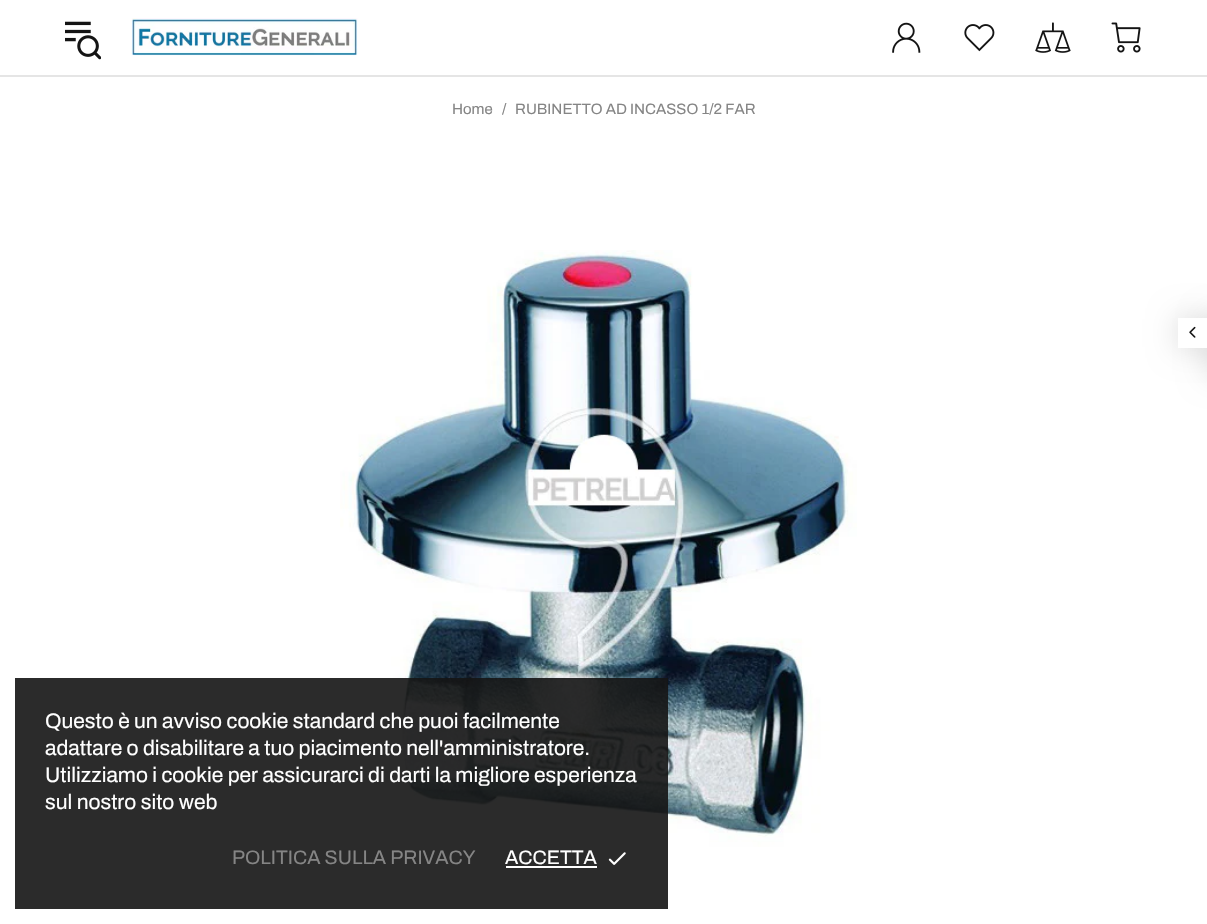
#include "include/core/SkBlurTypes.h"
#include "include/core/SkCanvas.h"
#include "include/core/SkData.h"
#include "include/core/SkFont.h"
#include "include/core/SkFontMgr.h"
#include "include/core/SkImage.h"
#include "include/core/SkMaskFilter.h"
#include "include/core/SkPaint.h"
#include "include/core/SkPathBuilder.h"
#include "include/core/SkTextBlob.h"
#include "include/effects/SkDashPathEffect.h"
#include "include/effects/SkGradientShader.h"
#include "include/utils/SkParsePath.h"

extern sk_sp<SkFontMgr> fontMgr;

void draw(SkCanvas* canvas) {
  SkPaint p;
  p.setAntiAlias(true);
  canvas->clear(SK_ColorWHITE);
  p.setColor(SkColorSetRGB(229, 229, 229));
  canvas->drawRect(SkRect::MakeLTRB(0, 75, 1207, 77), p);
  canvas->drawImageRect(SkImages::DeferredFromEncodedData(SkData::MakeFromFileName("images/1.png")), SkRect::MakeLTRB(65, 21, 101, 60), SkSamplingOptions());
  canvas->drawImageRect(SkImages::DeferredFromEncodedData(SkData::MakeFromFileName("images/2.png")), SkRect::MakeLTRB(131, 18, 358, 56), SkSamplingOptions());
  canvas->drawImageRect(SkImages::DeferredFromEncodedData(SkData::MakeFromFileName("images/3.png")), SkRect::MakeLTRB(892, 22, 921, 53), SkSamplingOptions());
  canvas->drawImageRect(SkImages::DeferredFromEncodedData(SkData::MakeFromFileName("images/4.png")), SkRect::MakeLTRB(964, 24, 995, 52), SkSamplingOptions());
  canvas->drawImageRect(SkImages::DeferredFromEncodedData(SkData::MakeFromFileName("images/5.png")), SkRect::MakeLTRB(1035, 22, 1071, 53), SkSamplingOptions());
  canvas->drawImageRect(SkImages::DeferredFromEncodedData(SkData::MakeFromFileName("images/6.png")), SkRect::MakeLTRB(1111, 22, 1141, 53), SkSamplingOptions());
  canvas->drawImageRect(SkImages::DeferredFromEncodedData(SkData::MakeFromFileName("images/7.png")), SkRect::MakeLTRB(340, 250, 857, 847), SkSamplingOptions());
  p.setColor(SkColorSetARGB(38, 0, 0, 0));
  p.setMaskFilter(SkMaskFilter::MakeBlur(kNormal_SkBlurStyle, 15));
  canvas->drawRect(SkRect::MakeLTRB(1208, 318, 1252, 375), p);
  p.setMaskFilter(nullptr);
  p.setMaskFilter(SkMaskFilter::MakeBlur(kNormal_SkBlurStyle, 15));
  canvas->drawRect(SkRect::MakeLTRB(1178, 318, 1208, 348), p);
  p.setMaskFilter(nullptr);
  p.setColor(SK_ColorWHITE);
  canvas->drawRect(SkRect::MakeLTRB(1178, 318, 1207, 348), p);
  canvas->drawImageRect(SkImages::DeferredFromEncodedData(SkData::MakeFromFileName("images/8.png")), SkRect::MakeLTRB(1189, 326, 1196, 338), SkSamplingOptions());
  p.setColor(SkColorSetARGB(230, 20, 20, 20));
  canvas->drawRect(SkRect::MakeLTRB(15, 678, 668, 909), p);
  p.setColor(SK_ColorWHITE);
  canvas->drawRect(SkRect::MakeLTRB(506, 866, 597, 868), p);
  canvas->drawImageRect(SkImages::DeferredFromEncodedData(SkData::MakeFromFileName("images/9.png")), SkRect::MakeLTRB(608, 852, 626, 865), SkSamplingOptions());
  SkFont font1(fontMgr->matchFamilyStyle("Archivo", SkFontStyle::Normal()), 15);
  font1.setSubpixel(true);
  p.setColor(SkColorSetRGB(133, 133, 133));
  canvas->drawString("Home", 452, 114, font1, p);
  canvas->drawString("/", 502, 114, font1, p);
  canvas->drawString("RUBINETTO AD INCASSO 1/2 FAR", 515, 114, font1, p);
  SkFont font2(fontMgr->matchFamilyStyle("Archivo", SkFontStyle::Normal()), 21);
  font2.setSubpixel(true);
  p.setColor(SK_ColorWHITE);
  canvas->drawString("Questo è un avviso cookie standard che puoi facilmente", 45, 728, font2, p);
  canvas->drawString("adattare o disabilitare a tuo piacimento nell'amministratore.", 45, 755, font2, p);
  canvas->drawString("Utilizziamo i cookie per assicurarci di darti la migliore esperienza", 45, 782, font2, p);
  canvas->drawString("sul nostro sito web", 45, 809, font2, p);
  SkFont font3(fontMgr->matchFamilyStyle("Archivo", SkFontStyle::Normal()), 19.5f);
  font3.setSubpixel(true);
  p.setColor(SkColorSetRGB(133, 133, 133));
  canvas->drawString("POLITICA SULLA PRIVACY", 232, 864, font3, p);
  p.setColor(SK_ColorWHITE);
  canvas->drawString("ACCETTA", 505, 864, font3, p);
}
